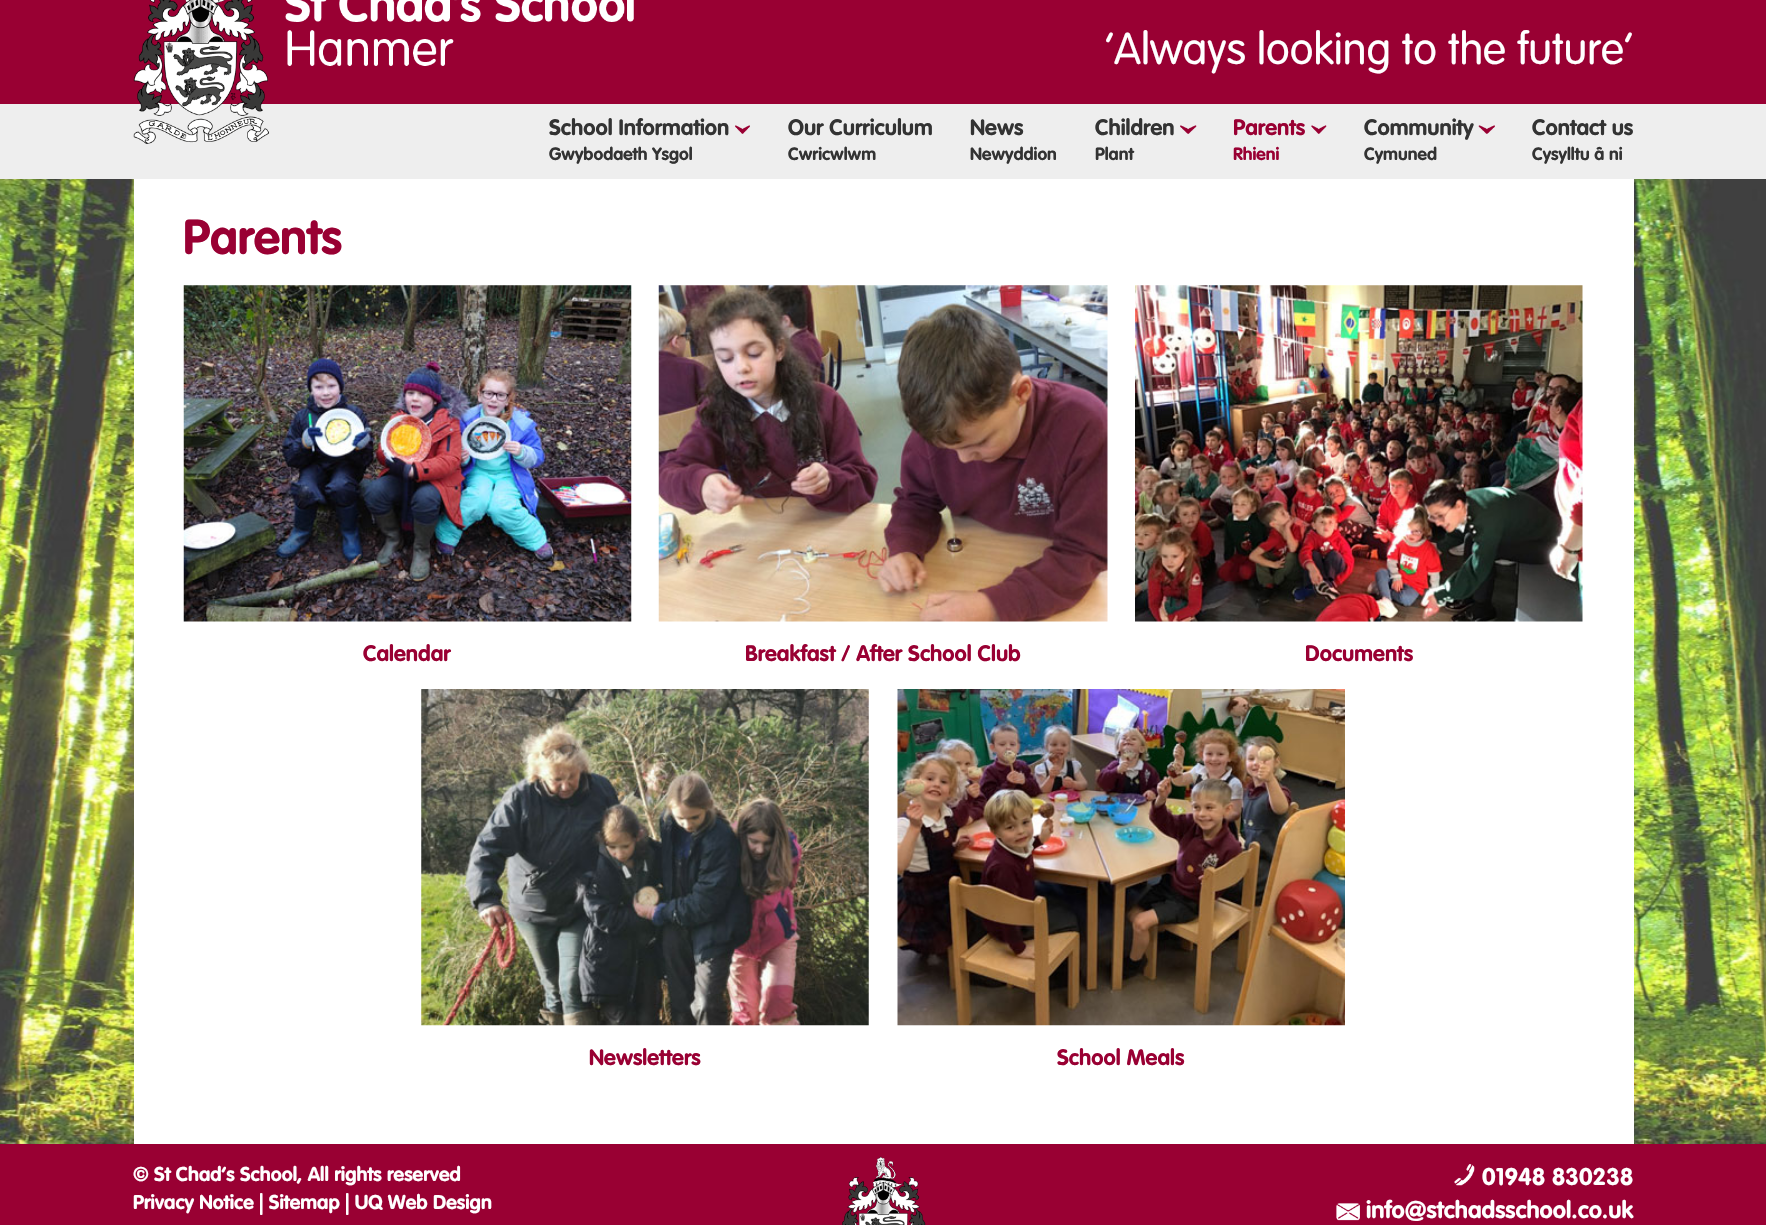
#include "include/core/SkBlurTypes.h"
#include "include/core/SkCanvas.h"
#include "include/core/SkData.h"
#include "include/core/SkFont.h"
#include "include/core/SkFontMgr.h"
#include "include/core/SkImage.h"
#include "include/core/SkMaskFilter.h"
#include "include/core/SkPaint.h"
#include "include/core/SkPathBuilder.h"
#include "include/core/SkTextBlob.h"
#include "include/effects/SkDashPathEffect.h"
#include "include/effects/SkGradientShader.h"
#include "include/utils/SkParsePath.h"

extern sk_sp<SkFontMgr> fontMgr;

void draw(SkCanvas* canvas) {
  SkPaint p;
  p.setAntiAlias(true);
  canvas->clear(SkColorSetRGB(153, 0, 51));
  p.setColor(SkColorSetRGB(238, 238, 238));
  canvas->drawRect(SkRect::MakeLTRB(0, 104, 1766, 179), p);
  canvas->drawImageRect(SkImages::DeferredFromEncodedData(SkData::MakeFromFileName("images/1.png")), SkRect::MakeLTRB(133, 0, 634, 144), SkSamplingOptions());
  canvas->drawImageRect(SkImages::DeferredFromEncodedData(SkData::MakeFromFileName("images/2.png")), SkRect::MakeLTRB(735, 125, 750, 134), SkSamplingOptions());
  canvas->drawImageRect(SkImages::DeferredFromEncodedData(SkData::MakeFromFileName("images/3.png")), SkRect::MakeLTRB(1180, 125, 1197, 134), SkSamplingOptions());
  canvas->drawImageRect(SkImages::DeferredFromEncodedData(SkData::MakeFromFileName("images/4.png")), SkRect::MakeLTRB(1311, 125, 1327, 134), SkSamplingOptions());
  canvas->drawImageRect(SkImages::DeferredFromEncodedData(SkData::MakeFromFileName("images/5.png")), SkRect::MakeLTRB(1478, 125, 1495, 134), SkSamplingOptions());
  canvas->drawImageRect(SkImages::DeferredFromEncodedData(SkData::MakeFromFileName("images/6.png")), SkRect::MakeLTRB(0, 179, 1766, 1144), SkSamplingOptions());
  p.setColor(SK_ColorWHITE);
  canvas->drawRect(SkRect::MakeLTRB(134, 179, 1634, 1144), p);
  canvas->drawImageRect(SkImages::DeferredFromEncodedData(SkData::MakeFromFileName("images/7.png")), SkRect::MakeLTRB(183, 285, 632, 622), SkSamplingOptions());
  canvas->drawImageRect(SkImages::DeferredFromEncodedData(SkData::MakeFromFileName("images/8.png")), SkRect::MakeLTRB(658, 285, 1108, 622), SkSamplingOptions());
  canvas->drawImageRect(SkImages::DeferredFromEncodedData(SkData::MakeFromFileName("images/9.png")), SkRect::MakeLTRB(1135, 285, 1583, 622), SkSamplingOptions());
  canvas->drawImageRect(SkImages::DeferredFromEncodedData(SkData::MakeFromFileName("images/10.png")), SkRect::MakeLTRB(421, 689, 869, 1026), SkSamplingOptions());
  canvas->drawImageRect(SkImages::DeferredFromEncodedData(SkData::MakeFromFileName("images/11.png")), SkRect::MakeLTRB(897, 689, 1345, 1026), SkSamplingOptions());
  canvas->drawImageRect(SkImages::DeferredFromEncodedData(SkData::MakeFromFileName("images/12.png")), SkRect::MakeLTRB(842, 1156, 926, 1225), SkSamplingOptions());
  canvas->drawImageRect(SkImages::DeferredFromEncodedData(SkData::MakeFromFileName("images/13.png")), SkRect::MakeLTRB(1454, 1164, 1475, 1186), SkSamplingOptions());
  canvas->drawImageRect(SkImages::DeferredFromEncodedData(SkData::MakeFromFileName("images/14.png")), SkRect::MakeLTRB(1336, 1203, 1360, 1221), SkSamplingOptions());
  SkFont font1(fontMgr->matchFamilyStyle("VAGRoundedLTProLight", SkFontStyle::Normal()), 44);
  font1.setSubpixel(true);
  canvas->drawString("‘Always looking to the future’", 1105, 64, font1, p);
  SkFont font2(fontMgr->matchFamilyStyle("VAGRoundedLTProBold", SkFontStyle::Normal()), 22);
  font2.setSubpixel(true);
  p.setColor(SkColorSetRGB(51, 51, 51));
  canvas->drawString("School Information", 549, 135, font2, p);
  SkFont font3(fontMgr->matchFamilyStyle("VAGRoundedLTProBold", SkFontStyle::Normal()), 17.5f);
  font3.setSubpixel(true);
  canvas->drawString("Gwybodaeth Ysgol", 549, 160, font3, p);
  canvas->drawString("Our Curriculum", 788, 135, font2, p);
  canvas->drawString("Cwricwlwm", 788, 160, font3, p);
  canvas->drawString("News", 970, 135, font2, p);
  canvas->drawString("Newyddion", 970, 160, font3, p);
  canvas->drawString("Children", 1095, 135, font2, p);
  canvas->drawString("Plant", 1095, 160, font3, p);
  p.setColor(SkColorSetRGB(153, 0, 51));
  canvas->drawString("Parents", 1233, 135, font2, p);
  canvas->drawString("Rhieni", 1233, 160, font3, p);
  p.setColor(SkColorSetRGB(51, 51, 51));
  canvas->drawString("Community", 1364, 135, font2, p);
  canvas->drawString("Cymuned", 1364, 160, font3, p);
  canvas->drawString("Contact us", 1532, 135, font2, p);
  canvas->drawString("Cysylltu â ni", 1532, 160, font3, p);
  SkFont font4(fontMgr->matchFamilyStyle("VAGRoundedLTProBold", SkFontStyle::Normal()), 48.5f);
  font4.setSubpixel(true);
  p.setColor(SkColorSetRGB(153, 0, 51));
  canvas->drawString("Parents", 183, 254, font4, p);
  canvas->drawString("Calendar", 363, 661, font2, p);
  canvas->drawString("Breakfast / After School Club", 745, 661, font2, p);
  canvas->drawString("Documents", 1305, 661, font2, p);
  canvas->drawString("Newsletters", 589, 1065, font2, p);
  canvas->drawString("School Meals", 1057, 1065, font2, p);
  SkFont font5(fontMgr->matchFamilyStyle("VAGRoundedLTProBold", SkFontStyle::Normal()), 19.75f);
  font5.setSubpixel(true);
  p.setColor(SK_ColorWHITE);
  canvas->drawString("© St Chad’s School, All rights reserved", 133, 1181, font5, p);
  canvas->drawString("Privacy Notice | Sitemap | UQ Web Design", 133, 1209, font5, p);
  SkFont font6(fontMgr->matchFamilyStyle("VAGRoundedLTProBold", SkFontStyle::Normal()), 23.75f);
  font6.setSubpixel(true);
  canvas->drawString("01948 830238", 1482, 1185, font6, p);
  canvas->drawString("info@stchadsschool.co.uk", 1366, 1218, font6, p);
}
